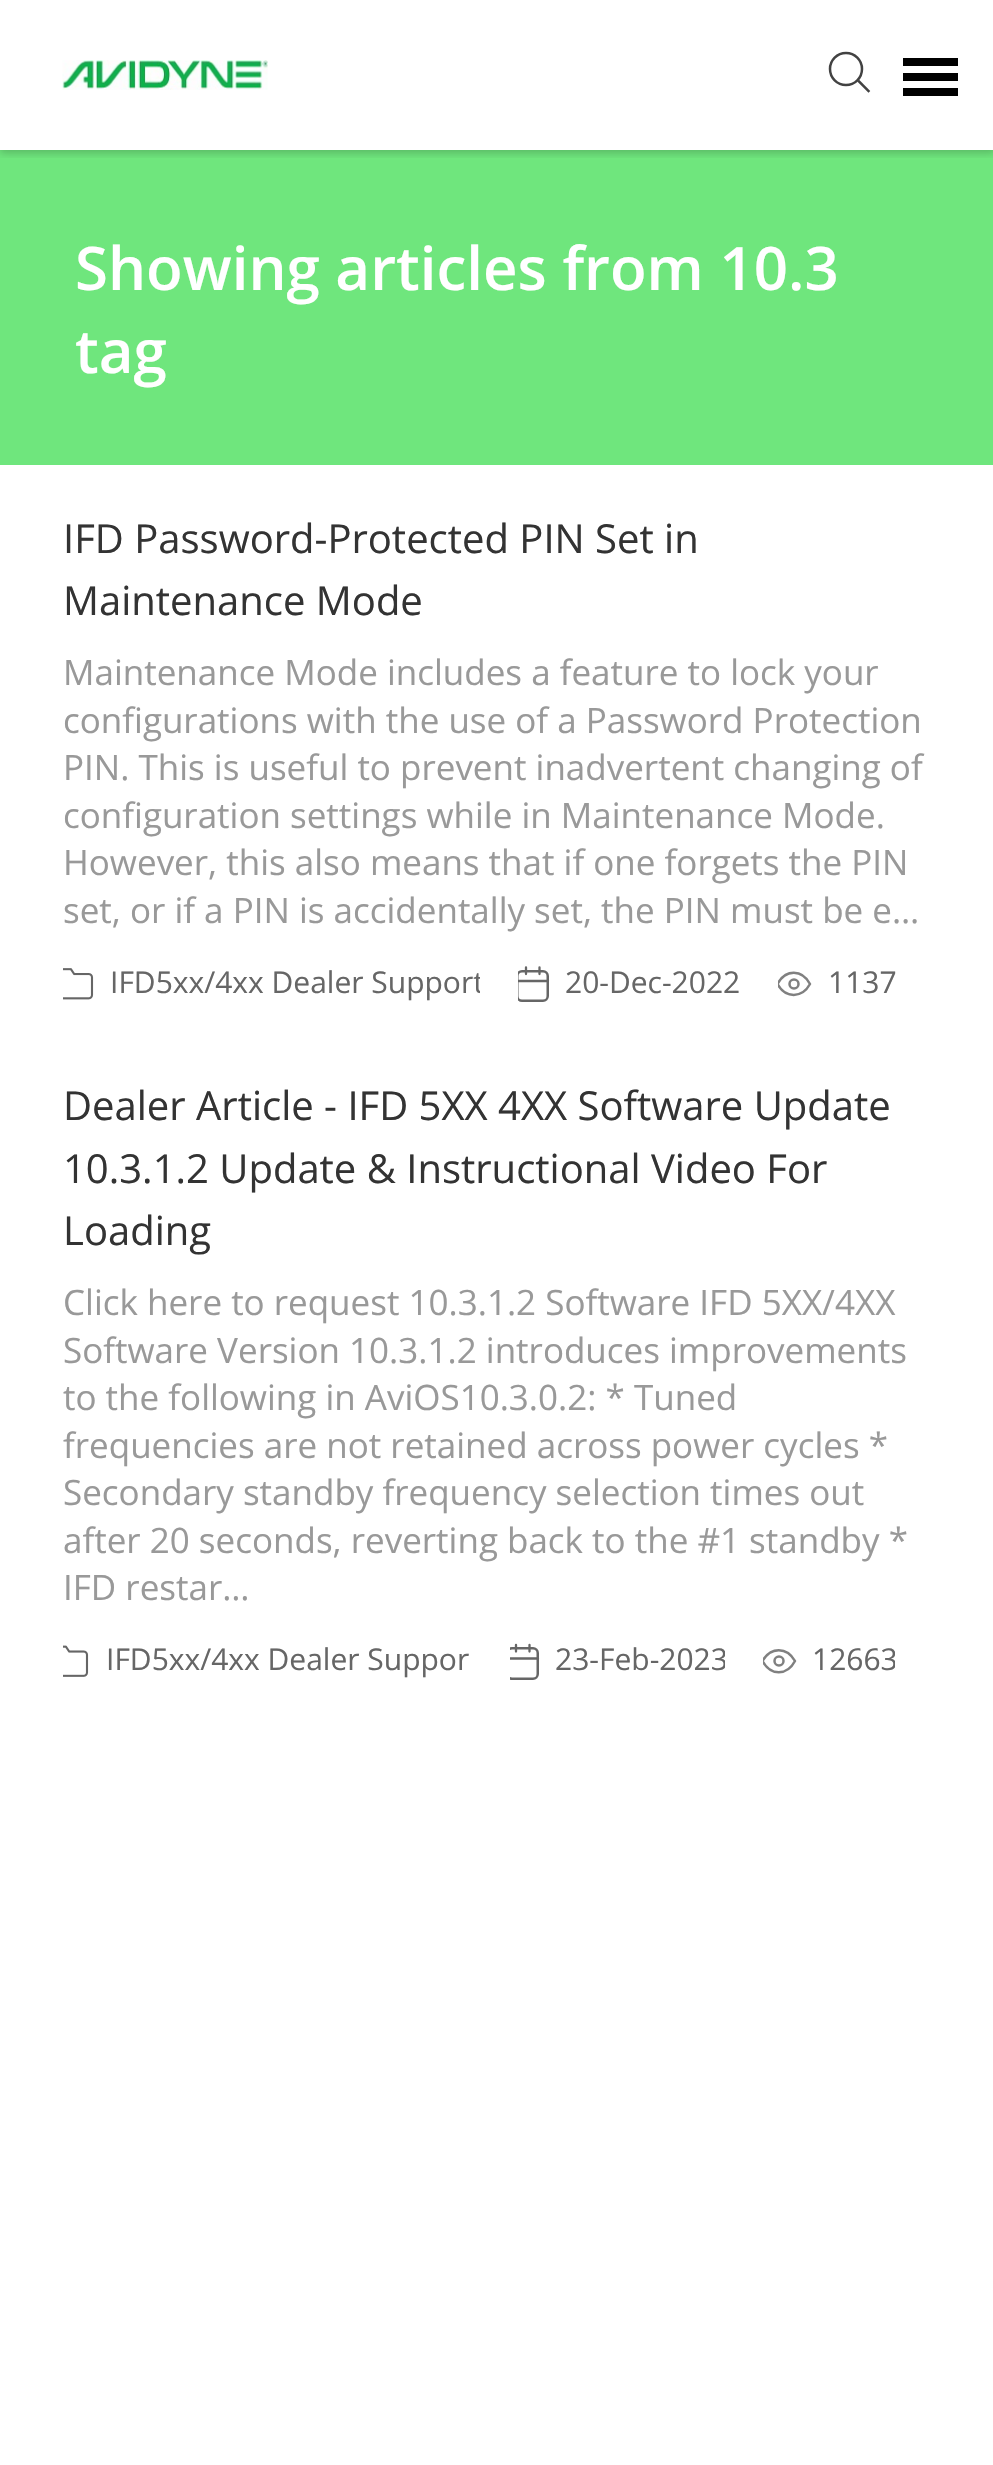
#include "include/core/SkBlurTypes.h"
#include "include/core/SkCanvas.h"
#include "include/core/SkData.h"
#include "include/core/SkFont.h"
#include "include/core/SkFontMgr.h"
#include "include/core/SkImage.h"
#include "include/core/SkMaskFilter.h"
#include "include/core/SkPaint.h"
#include "include/core/SkPathBuilder.h"
#include "include/core/SkTextBlob.h"
#include "include/effects/SkDashPathEffect.h"
#include "include/effects/SkGradientShader.h"
#include "include/utils/SkParsePath.h"

extern sk_sp<SkFontMgr> fontMgr;

void draw(SkCanvas* canvas) {
  SkPaint p;
  p.setAntiAlias(true);
  canvas->clear(SK_ColorWHITE);
  p.setColor(SkColorSetRGB(111, 230, 125));
  canvas->drawRect(SkRect::MakeLTRB(0, 150, 993, 465), p);
  canvas->save();
  canvas->clipRect(SkRect::MakeLTRB(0, 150, 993, 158));
  p.setColor(SkColorSetARGB(51, 0, 0, 0));
  p.setMaskFilter(SkMaskFilter::MakeBlur(kNormal_SkBlurStyle, 4));
  canvas->drawRect(SkRect::MakeLTRB(0, 3, 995, 153), p);
  p.setMaskFilter(nullptr);
  canvas->restore();
  canvas->drawImageRect(SkImages::DeferredFromEncodedData(SkData::MakeFromFileName("images/1.png")), SkRect::MakeLTRB(62, 60, 268, 90), SkSamplingOptions());
  p.setStyle(SkPaint::kStroke_Style);
  p.setStrokeWidth(2.5f);
  p.setColor(SkColorSetRGB(66, 66, 66));
  canvas->drawCircle(846, 69, 16, p);
  p.setStrokeCap(SkPaint::kSquare_Cap);
  canvas->drawPath(SkPathBuilder().moveTo(859, 81.5f).lineTo(868.5f, 91).detach(), p);
  p.setStyle(SkPaint::kFill_Style);
  p.setColor(SK_ColorBLACK);
  canvas->drawRect(SkRect::MakeLTRB(903, 58, 958, 66), p);
  canvas->drawRect(SkRect::MakeLTRB(903, 73, 958, 81), p);
  canvas->drawRect(SkRect::MakeLTRB(903, 88, 958, 96), p);
  canvas->drawImageRect(SkImages::DeferredFromEncodedData(SkData::MakeFromFileName("images/2.png")), SkRect::MakeLTRB(63, 968, 94, 1000), SkSamplingOptions());
  canvas->save();
  canvas->clipRect(SkRect::MakeLTRB(518, 965, 550, 1003));
  p.setStyle(SkPaint::kStroke_Style);
  p.setStrokeCap(SkPaint::kButt_Cap);
  p.setColor(SkColorSetRGB(102, 102, 102));
  canvas->drawRoundRect(SkRect::MakeLTRB(517.25f, 971.25f, 547.75f, 1000.75f), 4.75f, 4.75f, p);
  p.setStrokeWidth(2.3f);
  p.setStrokeCap(SkPaint::kRound_Cap);
  p.setStrokeJoin(SkPaint::kRound_Join);
  canvas->drawPath(SkPathBuilder().moveTo(539.5f, 967.5f).lineTo(539.5f, 974).moveTo(526, 967.5f).lineTo(526, 974).moveTo(517.5f, 981).lineTo(548, 981).detach(), p);
  canvas->restore();
  canvas->save();
  canvas->clipRect(SkRect::MakeLTRB(778, 965, 813, 1003));
  p.setStrokeWidth(2.5f);
  p.setColor(SkColorSetRGB(128, 128, 128));
  canvas->drawPath(SkPathBuilder().moveTo(777.5f, 984).cubicTo(785.5f, 969, 802, 969, 810, 984).cubicTo(802, 998.5f, 785.5f, 998.5f, 777.5f, 984).close().detach(), p);
  canvas->restore();
  p.setStrokeCap(SkPaint::kButt_Cap);
  p.setStrokeJoin(SkPaint::kMiter_Join);
  canvas->drawCircle(794, 984, 4.5f, p);
  canvas->drawImageRect(SkImages::DeferredFromEncodedData(SkData::MakeFromFileName("images/3.png")), SkRect::MakeLTRB(63, 1645, 89, 1677), SkSamplingOptions());
  canvas->save();
  canvas->clipRect(SkRect::MakeLTRB(510, 1643, 540, 1680));
  p.setColor(SkColorSetRGB(102, 102, 102));
  canvas->drawRoundRect(SkRect::MakeLTRB(507.25f, 1648.25f, 537.75f, 1678.75f), 4.75f, 4.75f, p);
  p.setStrokeWidth(2.3f);
  p.setStrokeCap(SkPaint::kRound_Cap);
  p.setStrokeJoin(SkPaint::kRound_Join);
  canvas->drawPath(SkPathBuilder().moveTo(529.5f, 1645).lineTo(529.5f, 1651.5f).moveTo(516, 1645).lineTo(516, 1651.5f).moveTo(507.5f, 1658.5f).lineTo(538, 1658.5f).detach(), p);
  canvas->restore();
  canvas->save();
  canvas->clipRect(SkRect::MakeLTRB(763, 1643, 798, 1680));
  p.setStrokeWidth(2.5f);
  p.setColor(SkColorSetRGB(128, 128, 128));
  canvas->drawPath(SkPathBuilder().moveTo(762.5f, 1661).cubicTo(770.5f, 1646.5f, 787, 1646.5f, 795, 1661).cubicTo(787, 1676, 770.5f, 1676, 762.5f, 1661).close().detach(), p);
  canvas->restore();
  p.setStrokeCap(SkPaint::kButt_Cap);
  p.setStrokeJoin(SkPaint::kMiter_Join);
  canvas->drawCircle(779, 1661, 4.5f, p);
  SkFont font1(fontMgr->matchFamilyStyle("Open Sans", SkFontStyle(600, SkFontStyle::kNormal_Width, SkFontStyle::kUpright_Slant)), 60);
  font1.setSubpixel(true);
  p.setStyle(SkPaint::kFill_Style);
  p.setColor(SK_ColorWHITE);
  canvas->drawString("Showing articles from 10.3", 75, 290, font1, p);
  canvas->drawString("tag", 75, 373, font1, p);
  SkFont font2(fontMgr->matchFamilyStyle("Open Sans", SkFontStyle::Normal()), 40);
  font2.setSubpixel(true);
  p.setColor(SkColorSetRGB(51, 51, 51));
  canvas->drawString("IFD Password-Protected PIN Set in", 63, 553, font2, p);
  canvas->drawString("Maintenance Mode", 63, 615, font2, p);
  SkFont font3(fontMgr->matchFamilyStyle("Open Sans", SkFontStyle::Normal()), 35);
  font3.setSubpixel(true);
  p.setColor(SkColorSetRGB(153, 153, 153));
  canvas->drawString("Maintenance Mode includes a feature to lock your", 63, 685, font3, p);
  canvas->drawString("configurations with the use of a Password Protection", 63, 733, font3, p);
  canvas->drawString("PIN. This is useful to prevent inadvertent changing of", 63, 780, font3, p);
  canvas->drawString("configuration settings while in Maintenance Mode.", 63, 828, font3, p);
  canvas->drawString("However, this also means that if one forgets the PIN", 63, 875, font3, p);
  canvas->drawString("set, or if a PIN is accidentally set, the PIN must be e…", 63, 923, font3, p);
  canvas->save();
  canvas->clipRect(SkRect::MakeLTRB(63, 958, 480, 1008));
  SkFont font4(fontMgr->matchFamilyStyle("Open Sans", SkFontStyle::Normal()), 30);
  font4.setSubpixel(true);
  p.setColor(SkColorSetRGB(102, 102, 102));
  canvas->drawString("IFD5xx/4xx Dealer Support", 110, 993, font4, p);
  canvas->restore();
  canvas->drawString("20-Dec-2022", 565, 993, font4, p);
  canvas->drawString("1137", 828, 993, font4, p);
  p.setColor(SkColorSetRGB(51, 51, 51));
  canvas->drawString("Dealer Article - IFD 5XX 4XX Software Update", 63, 1120, font2, p);
  canvas->drawString("10.3.1.2 Update & Instructional Video For", 63, 1183, font2, p);
  canvas->drawString("Loading", 63, 1245, font2, p);
  p.setColor(SkColorSetRGB(153, 153, 153));
  canvas->drawString("Click here to request 10.3.1.2 Software IFD 5XX/4XX", 63, 1315, font3, p);
  canvas->drawString("Software Version 10.3.1.2 introduces improvements", 63, 1363, font3, p);
  canvas->drawString("to the following in AviOS10.3.0.2: * Tuned", 63, 1410, font3, p);
  canvas->drawString("frequencies are not retained across power cycles *", 63, 1458, font3, p);
  canvas->drawString("Secondary standby frequency selection times out", 63, 1505, font3, p);
  canvas->drawString("after 20 seconds, reverting back to the #1 standby *", 63, 1553, font3, p);
  canvas->drawString("IFD restar…", 63, 1600, font3, p);
  p.setColor(SkColorSetRGB(102, 102, 102));
  canvas->drawString("IFD5xx/4xx Dealer Suppor", 106, 1670, font4, p);
  canvas->save();
  canvas->clipRect(SkRect::MakeLTRB(510, 1635, 725, 1685));
  canvas->drawString("23-Feb-2023", 555, 1670, font4, p);
  canvas->restore();
  canvas->save();
  canvas->clipRect(SkRect::MakeLTRB(763, 1635, 895, 1685));
  canvas->drawString("12663", 812, 1670, font4, p);
  canvas->restore();
}
